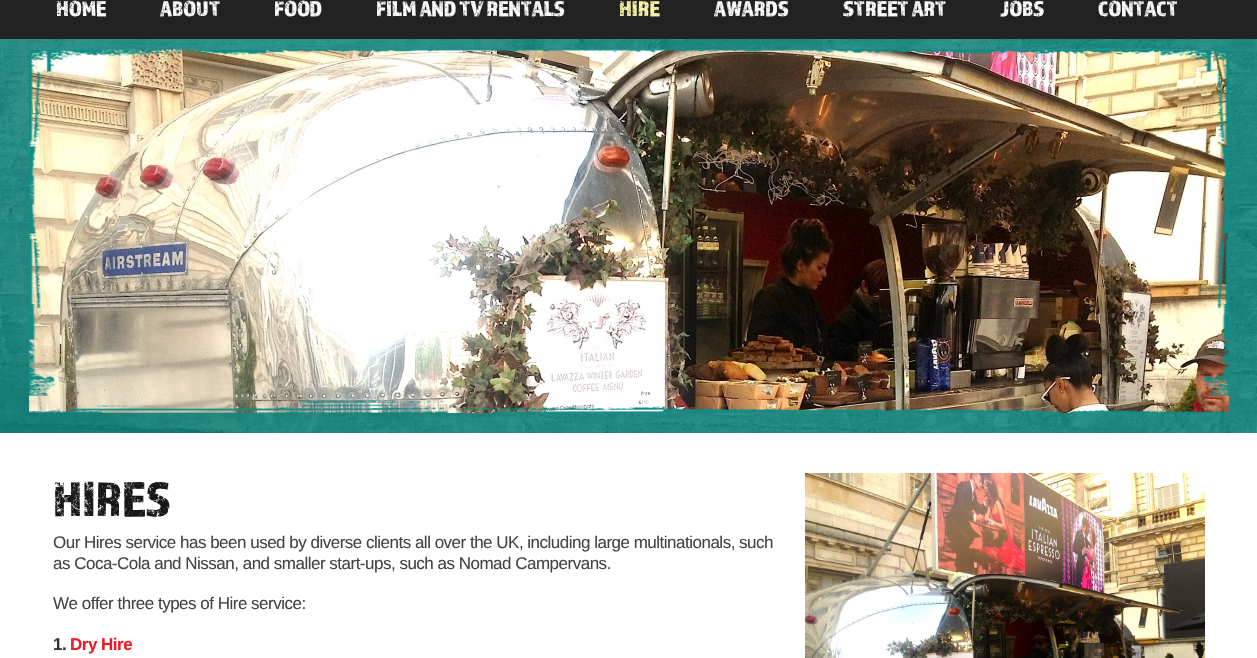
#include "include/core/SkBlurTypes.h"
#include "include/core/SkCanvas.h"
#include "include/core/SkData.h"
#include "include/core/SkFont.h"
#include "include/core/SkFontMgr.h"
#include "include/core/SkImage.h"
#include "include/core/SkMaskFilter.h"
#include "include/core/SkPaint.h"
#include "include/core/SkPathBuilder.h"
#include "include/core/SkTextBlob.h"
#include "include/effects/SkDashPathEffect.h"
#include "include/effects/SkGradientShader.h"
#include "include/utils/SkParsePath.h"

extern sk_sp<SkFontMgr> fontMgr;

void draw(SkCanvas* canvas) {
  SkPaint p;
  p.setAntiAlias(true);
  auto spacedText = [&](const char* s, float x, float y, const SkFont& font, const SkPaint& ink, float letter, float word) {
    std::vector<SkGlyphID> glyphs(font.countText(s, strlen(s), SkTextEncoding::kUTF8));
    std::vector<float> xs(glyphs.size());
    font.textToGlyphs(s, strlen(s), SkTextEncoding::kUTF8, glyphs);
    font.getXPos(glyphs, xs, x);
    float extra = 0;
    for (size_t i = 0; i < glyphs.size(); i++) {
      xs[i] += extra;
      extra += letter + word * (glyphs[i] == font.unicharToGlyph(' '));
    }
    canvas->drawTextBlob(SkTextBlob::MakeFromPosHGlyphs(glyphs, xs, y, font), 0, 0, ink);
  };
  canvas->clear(SK_ColorWHITE);
  canvas->drawImageRect(SkImages::DeferredFromEncodedData(SkData::MakeFromFileName("images/1.png")), SkRect::MakeLTRB(0, 39, 1257, 433), SkSamplingOptions());
  p.setColor(SkColorSetRGB(34, 34, 34));
  canvas->drawRect(SkRect::MakeLTRB(0, 0, 1257, 39), p);
  canvas->drawImageRect(SkImages::DeferredFromEncodedData(SkData::MakeFromFileName("images/2.png")), SkRect::MakeLTRB(29, 49, 1229, 413), SkSamplingOptions());
  canvas->drawImageRect(SkImages::DeferredFromEncodedData(SkData::MakeFromFileName("images/3.png")), SkRect::MakeLTRB(29, 49, 1229, 413), SkSamplingOptions());
  canvas->drawImageRect(SkImages::DeferredFromEncodedData(SkData::MakeFromFileName("images/4.png")), SkRect::MakeLTRB(805, 473, 1205, 658), SkSamplingOptions());
  SkFont font1(fontMgr->matchFamilyStyle("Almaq", SkFontStyle::Normal()), 22);
  font1.setSubpixel(true);
  p.setColor(SK_ColorWHITE);
  canvas->drawString("HOME", 56, 16, font1, p);
  canvas->drawString("ABOUT", 160, 16, font1, p);
  canvas->drawString("FOOD", 274, 16, font1, p);
  canvas->drawString("FILM AND TV RENTALS", 376, 16, font1, p);
  p.setColor(SkColorSetRGB(251, 246, 170));
  canvas->drawString("HIRE", 619, 16, font1, p);
  p.setColor(SK_ColorWHITE);
  canvas->drawString("AWARDS", 714, 16, font1, p);
  canvas->drawString("STREET ART", 843, 16, font1, p);
  canvas->drawString("JOBS", 1000, 16, font1, p);
  canvas->drawString("CONTACT", 1098, 16, font1, p);
  SkFont font2(fontMgr->matchFamilyStyle("Almaq", SkFontStyle::Normal()), 50);
  font2.setSubpixel(true);
  p.setColor(SkColorSetRGB(24, 24, 24));
  canvas->drawString("HIRES", 53, 516, font2, p);
  SkFont font3(fontMgr->matchFamilyStyle("Liberation Sans", SkFontStyle::Normal()), 17);
  font3.setSubpixel(true);
  p.setColor(SkColorSetRGB(68, 68, 68));
  spacedText("Our Hires service has been used by diverse clients all over the UK, including large multinationals, such", 53, 548, font3, p, -0.5f, 0);
  spacedText("as Coca-Cola and Nissan, and smaller start-ups, such as Nomad Campervans.", 53, 569, font3, p, -0.5f, 0);
  spacedText("We offer three types of Hire service:", 53, 609, font3, p, -0.5f, 0);
  SkFont font4(fontMgr->matchFamilyStyle("Liberation Sans", SkFontStyle::Bold()), 17);
  font4.setSubpixel(true);
  p.setColor(SkColorSetRGB(51, 51, 51));
  spacedText("1.", 53, 650, font4, p, -0.5f, 0);
  p.setColor(SkColorSetRGB(237, 28, 36));
  spacedText("Dry Hire", 70, 650, font4, p, -0.5f, 0);
}
